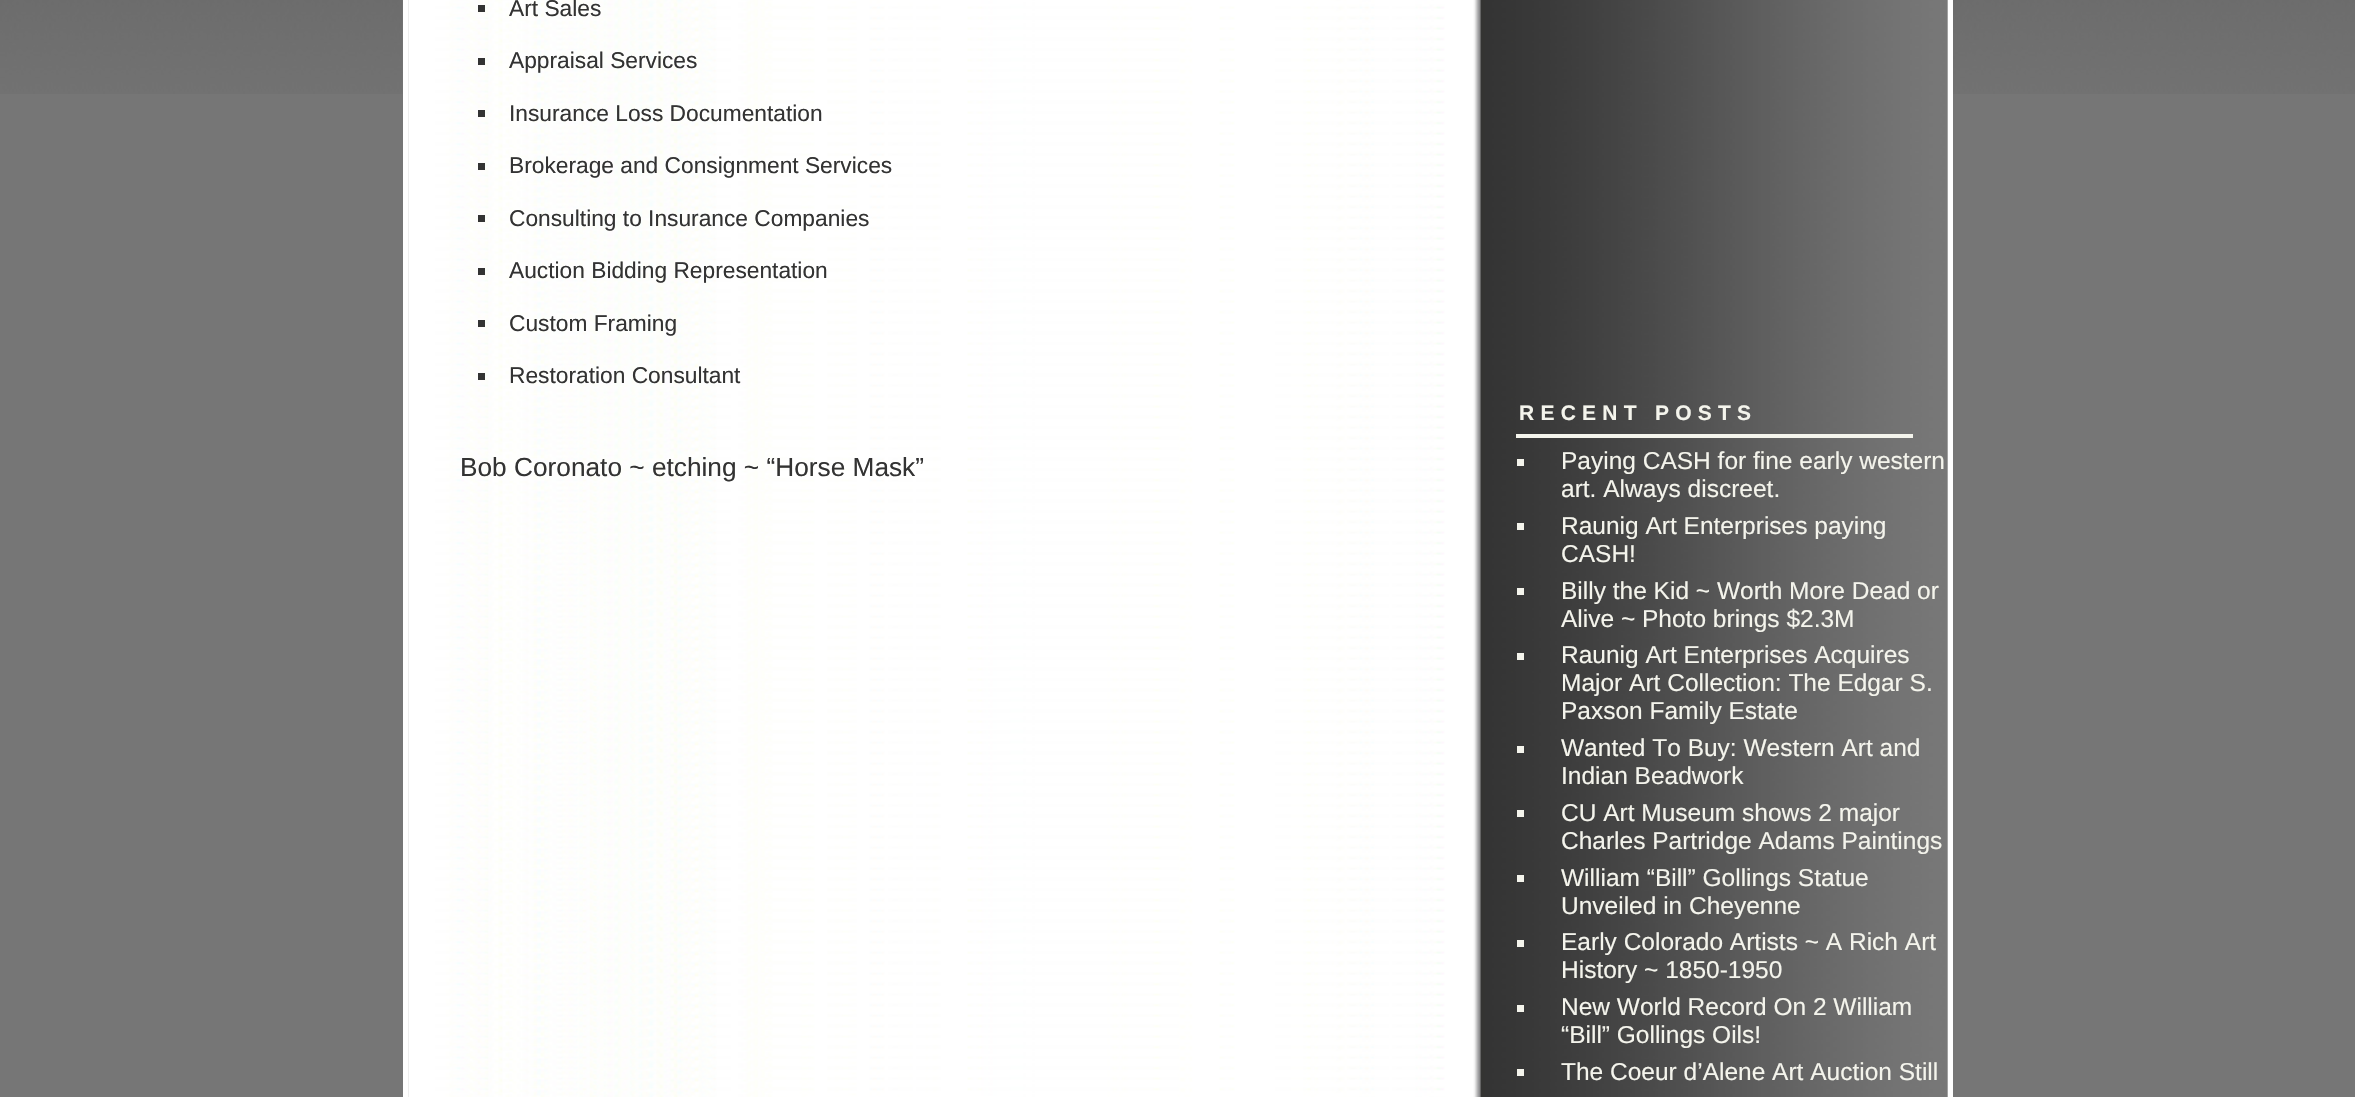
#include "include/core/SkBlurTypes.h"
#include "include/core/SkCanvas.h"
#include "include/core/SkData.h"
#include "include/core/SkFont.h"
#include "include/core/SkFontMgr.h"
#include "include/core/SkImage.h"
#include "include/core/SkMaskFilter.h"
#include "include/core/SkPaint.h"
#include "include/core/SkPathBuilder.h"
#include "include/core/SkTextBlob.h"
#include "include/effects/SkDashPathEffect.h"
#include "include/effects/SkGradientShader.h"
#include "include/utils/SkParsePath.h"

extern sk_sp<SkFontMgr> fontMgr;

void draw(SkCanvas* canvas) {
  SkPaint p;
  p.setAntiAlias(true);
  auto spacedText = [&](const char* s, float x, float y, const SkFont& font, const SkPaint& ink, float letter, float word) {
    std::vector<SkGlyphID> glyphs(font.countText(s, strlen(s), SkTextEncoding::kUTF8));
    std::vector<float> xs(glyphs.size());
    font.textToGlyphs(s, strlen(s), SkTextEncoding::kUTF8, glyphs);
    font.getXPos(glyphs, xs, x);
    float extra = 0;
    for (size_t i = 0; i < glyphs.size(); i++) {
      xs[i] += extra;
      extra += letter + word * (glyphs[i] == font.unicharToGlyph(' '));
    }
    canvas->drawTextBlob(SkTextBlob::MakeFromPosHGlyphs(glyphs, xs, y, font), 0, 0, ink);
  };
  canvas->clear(SkColorSetRGB(118, 118, 118));
  canvas->drawImageRect(SkImages::DeferredFromEncodedData(SkData::MakeFromFileName("images/1.png")), SkRect::MakeLTRB(0, 0, 2355, 94), SkSamplingOptions());
  canvas->drawImageRect(SkImages::DeferredFromEncodedData(SkData::MakeFromFileName("images/2.png")), SkRect::MakeLTRB(402, 0, 1948, 1097), SkSamplingOptions());
  p.setColor(SK_ColorWHITE);
  canvas->drawRect(SkRect::MakeLTRB(1948, 0, 1953, 1097), p);
  canvas->drawRect(SkRect::MakeLTRB(403, 0, 408, 1097), p);
  p.setColor(SkColorSetRGB(51, 51, 51));
  canvas->drawRect(SkRect::MakeLTRB(478, 5, 485, 12), p);
  canvas->drawRect(SkRect::MakeLTRB(478, 58, 485, 65), p);
  canvas->drawRect(SkRect::MakeLTRB(478, 110, 485, 117), p);
  canvas->drawRect(SkRect::MakeLTRB(478, 163, 485, 170), p);
  canvas->drawRect(SkRect::MakeLTRB(478, 215, 485, 222), p);
  canvas->drawRect(SkRect::MakeLTRB(478, 268, 485, 275), p);
  canvas->drawRect(SkRect::MakeLTRB(478, 320, 485, 327), p);
  canvas->drawRect(SkRect::MakeLTRB(478, 373, 485, 380), p);
  p.setColor(SkColorSetRGB(244, 244, 236));
  canvas->drawRect(SkRect::MakeLTRB(1516, 434, 1913, 438), p);
  canvas->drawRect(SkRect::MakeLTRB(1517, 459, 1524, 466), p);
  canvas->drawRect(SkRect::MakeLTRB(1517, 523, 1524, 530), p);
  canvas->drawRect(SkRect::MakeLTRB(1517, 588, 1524, 595), p);
  canvas->drawRect(SkRect::MakeLTRB(1517, 653, 1524, 660), p);
  canvas->drawRect(SkRect::MakeLTRB(1517, 746, 1524, 753), p);
  canvas->drawRect(SkRect::MakeLTRB(1517, 810, 1524, 817), p);
  canvas->drawRect(SkRect::MakeLTRB(1517, 875, 1524, 882), p);
  canvas->drawRect(SkRect::MakeLTRB(1517, 940, 1524, 947), p);
  canvas->drawRect(SkRect::MakeLTRB(1517, 1005, 1524, 1012), p);
  canvas->drawRect(SkRect::MakeLTRB(1517, 1069, 1524, 1076), p);
  SkFont font1(fontMgr->matchFamilyStyle("Liberation Sans", SkFontStyle::Normal()), 22.75f);
  font1.setSubpixel(true);
  p.setColor(SkColorSetRGB(51, 51, 51));
  canvas->drawString("Art Sales", 509, 16, font1, p);
  canvas->drawString("Appraisal Services", 509, 68, font1, p);
  canvas->drawString("Insurance Loss Documentation", 509, 121, font1, p);
  canvas->drawString("Brokerage and Consignment Services", 509, 173, font1, p);
  canvas->drawString("Consulting to Insurance Companies", 509, 226, font1, p);
  canvas->drawString("Auction Bidding Representation", 509, 278, font1, p);
  canvas->drawString("Custom Framing", 509, 331, font1, p);
  canvas->drawString("Restoration Consultant", 509, 383, font1, p);
  SkFont font2(fontMgr->matchFamilyStyle("Liberation Sans", SkFontStyle::Normal()), 26.25f);
  font2.setSubpixel(true);
  canvas->drawString("Bob Coronato ~ etching ~ “Horse Mask”", 460, 476, font2, p);
  SkFont font3(fontMgr->matchFamilyStyle("Liberation Sans", SkFontStyle::Bold()), 21);
  font3.setSubpixel(true);
  p.setColor(SkColorSetRGB(244, 244, 236));
  spacedText("RECENT POSTS", 1519, 420, font3, p, 6.25f, 0);
  SkFont font4(fontMgr->matchFamilyStyle("Liberation Sans", SkFontStyle::Normal()), 24.5f);
  font4.setSubpixel(true);
  canvas->drawString("Paying CASH for fine early western", 1561, 469, font4, p);
  canvas->drawString("art. Always discreet.", 1561, 497, font4, p);
  canvas->drawString("Raunig Art Enterprises paying", 1561, 534, font4, p);
  canvas->drawString("CASH!", 1561, 562, font4, p);
  canvas->drawString("Billy the Kid ~ Worth More Dead or", 1561, 599, font4, p);
  canvas->drawString("Alive ~ Photo brings $2.3M", 1561, 627, font4, p);
  canvas->drawString("Raunig Art Enterprises Acquires", 1561, 663, font4, p);
  canvas->drawString("Major Art Collection: The Edgar S.", 1561, 691, font4, p);
  canvas->drawString("Paxson Family Estate", 1561, 719, font4, p);
  canvas->drawString("Wanted To Buy: Western Art and", 1561, 756, font4, p);
  canvas->drawString("Indian Beadwork", 1561, 784, font4, p);
  canvas->drawString("CU Art Museum shows 2 major", 1561, 821, font4, p);
  canvas->drawString("Charles Partridge Adams Paintings", 1561, 849, font4, p);
  canvas->drawString("William “Bill” Gollings Statue", 1561, 886, font4, p);
  canvas->drawString("Unveiled in Cheyenne", 1561, 914, font4, p);
  canvas->drawString("Early Colorado Artists ~ A Rich Art", 1561, 950, font4, p);
  canvas->drawString("History ~ 1850-1950", 1561, 978, font4, p);
  canvas->drawString("New World Record On 2 William", 1561, 1015, font4, p);
  canvas->drawString("“Bill” Gollings Oils!", 1561, 1043, font4, p);
  canvas->drawString("The Coeur d’Alene Art Auction Still", 1561, 1080, font4, p);
}
